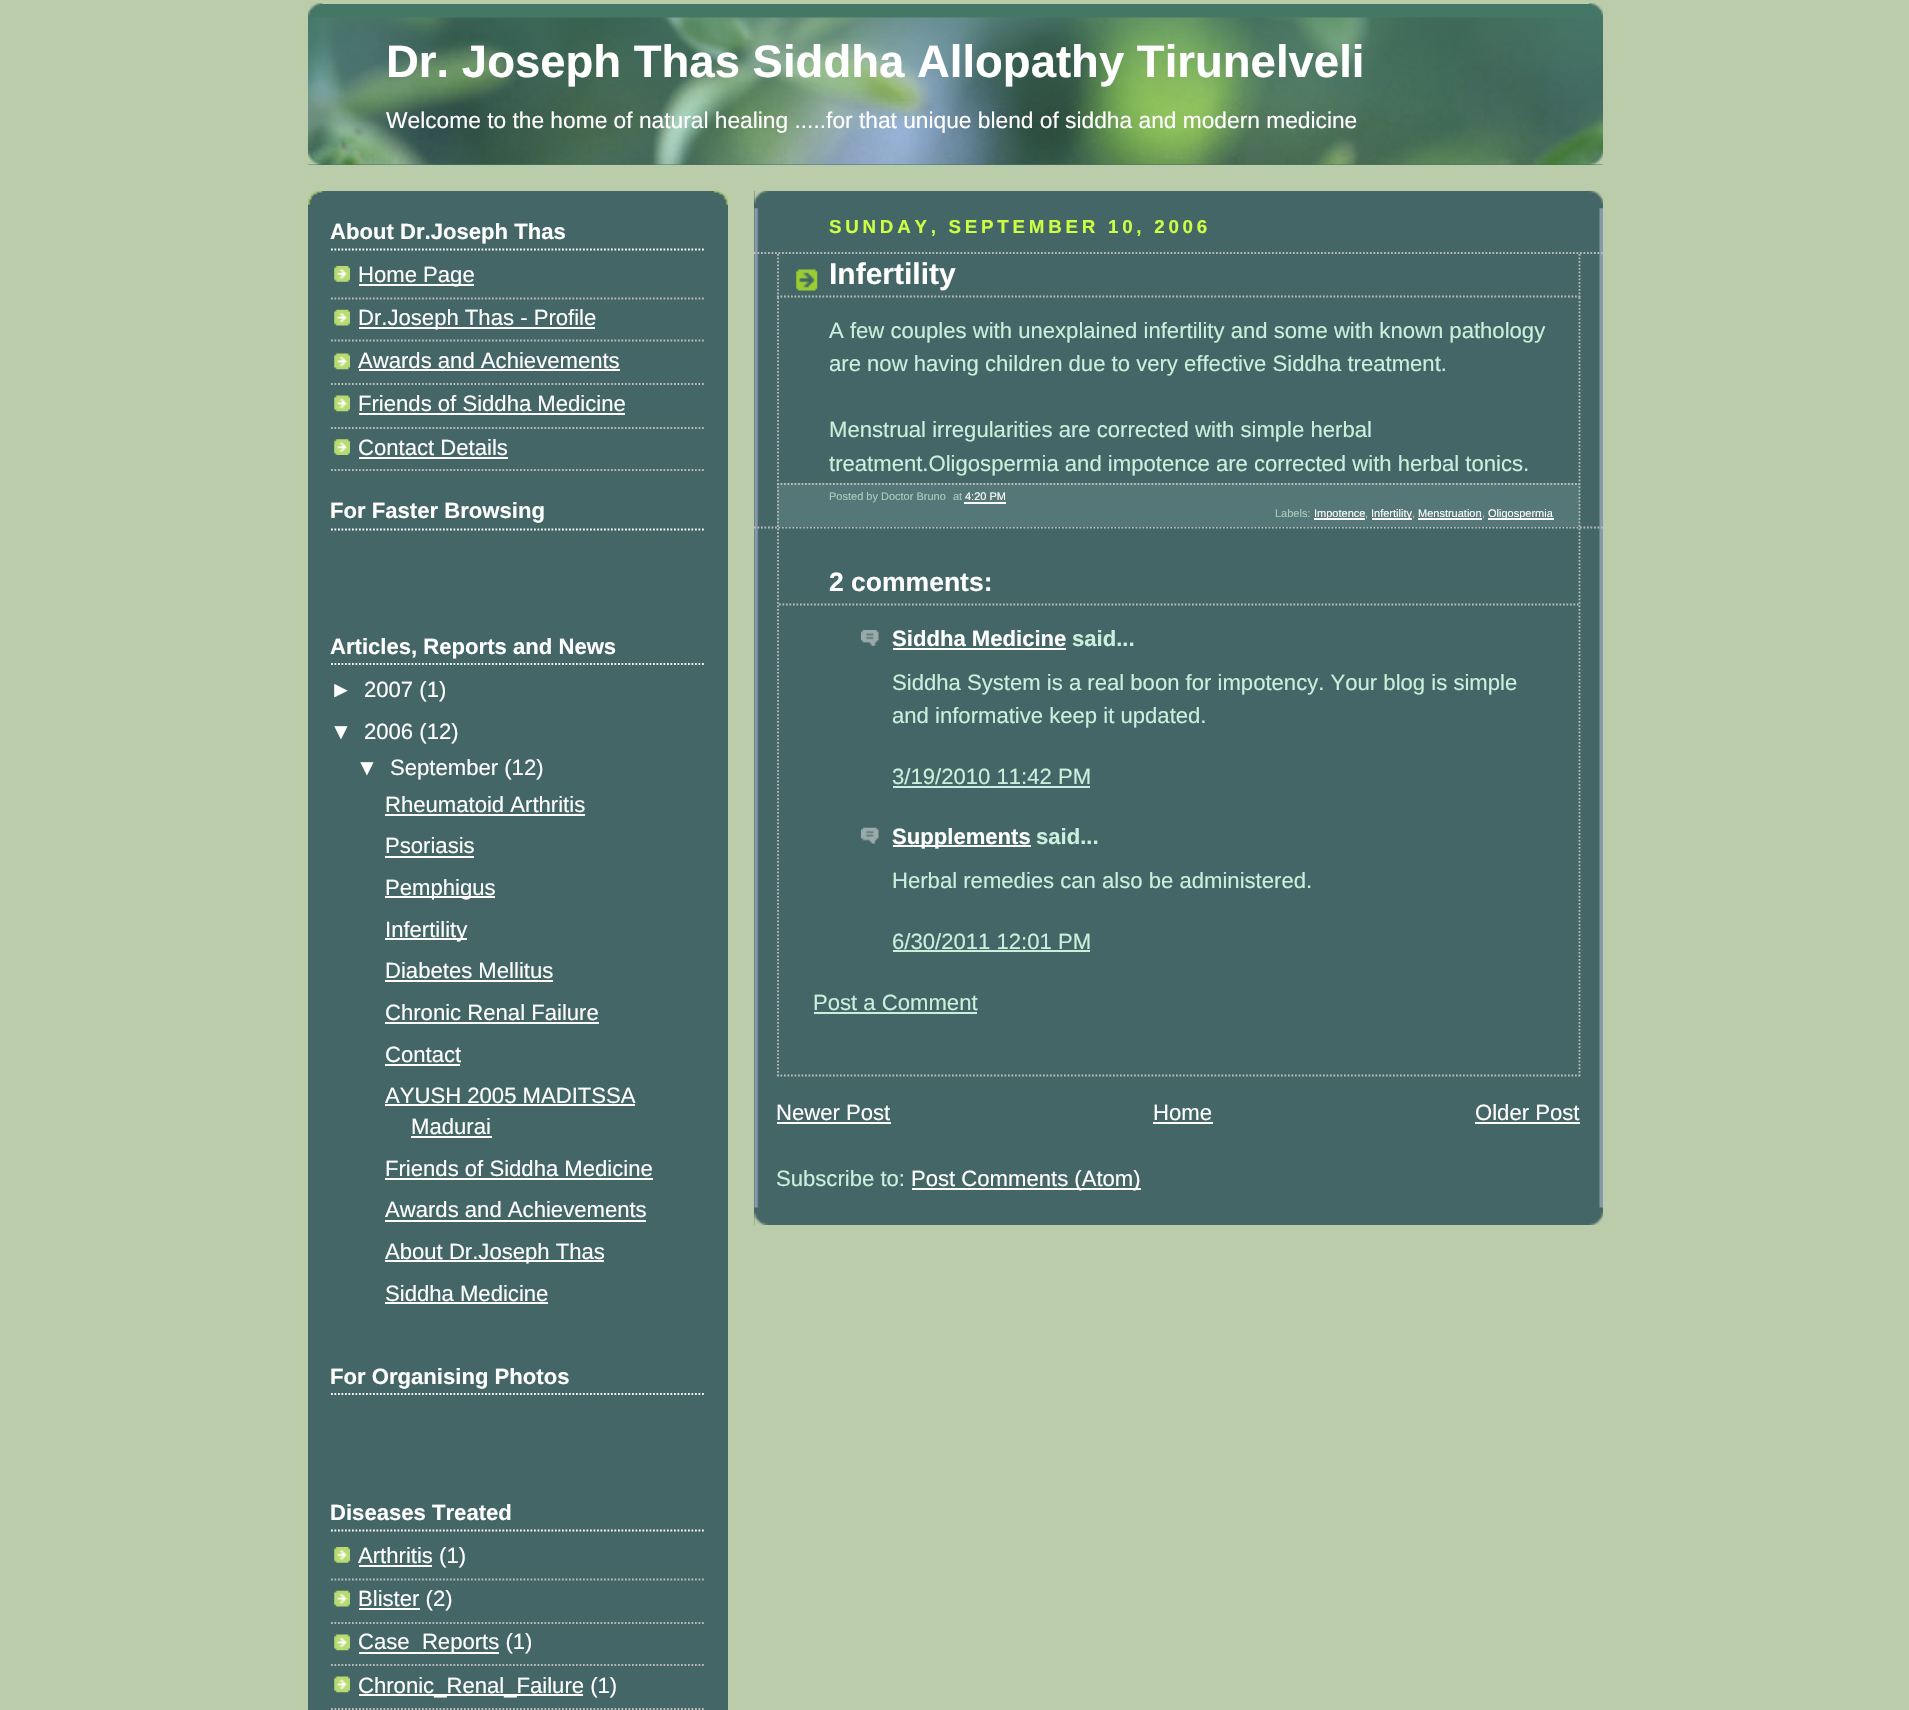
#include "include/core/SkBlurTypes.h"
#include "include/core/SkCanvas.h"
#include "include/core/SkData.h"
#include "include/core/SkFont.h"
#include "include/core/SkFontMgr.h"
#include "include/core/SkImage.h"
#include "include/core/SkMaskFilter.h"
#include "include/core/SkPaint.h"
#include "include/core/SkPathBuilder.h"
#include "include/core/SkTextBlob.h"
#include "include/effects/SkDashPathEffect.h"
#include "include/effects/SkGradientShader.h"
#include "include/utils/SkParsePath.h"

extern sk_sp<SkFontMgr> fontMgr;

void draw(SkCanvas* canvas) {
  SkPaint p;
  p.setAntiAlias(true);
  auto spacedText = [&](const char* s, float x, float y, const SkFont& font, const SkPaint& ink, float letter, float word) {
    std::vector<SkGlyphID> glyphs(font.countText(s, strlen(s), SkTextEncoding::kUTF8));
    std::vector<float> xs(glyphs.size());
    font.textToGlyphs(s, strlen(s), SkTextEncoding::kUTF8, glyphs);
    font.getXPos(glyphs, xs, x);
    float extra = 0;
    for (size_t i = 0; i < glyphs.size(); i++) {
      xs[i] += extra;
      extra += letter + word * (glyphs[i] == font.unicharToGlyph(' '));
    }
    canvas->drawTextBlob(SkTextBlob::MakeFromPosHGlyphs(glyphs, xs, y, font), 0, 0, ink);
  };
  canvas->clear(SkColorSetRGB(187, 204, 170));
  p.setColor(SkColorSetRGB(68, 119, 102));
  canvas->drawRect(SkRect::MakeLTRB(308, 4, 1603, 165), p);
  canvas->drawImageRect(SkImages::DeferredFromEncodedData(SkData::MakeFromFileName("images/1.png")), SkRect::MakeLTRB(308, 3, 1603, 18), SkSamplingOptions());
  canvas->drawImageRect(SkImages::DeferredFromEncodedData(SkData::MakeFromFileName("images/2.png")), SkRect::MakeLTRB(308, 17, 1603, 165), SkSamplingOptions());
  p.setColor(SkColorSetRGB(68, 102, 102));
  canvas->drawRect(SkRect::MakeLTRB(308, 191, 728, 1710), p);
  canvas->drawImageRect(SkImages::DeferredFromEncodedData(SkData::MakeFromFileName("images/3.png")), SkRect::MakeLTRB(308, 190, 728, 205), SkSamplingOptions());
  p.setStyle(SkPaint::kStroke_Style);
  p.setStrokeWidth(1.8f);
  p.setColor(SK_ColorWHITE);
  p.setPathEffect(SkDashPathEffect::Make({{1.75f, 1.75f}}, 0));
  canvas->drawPath(SkPathBuilder().moveTo(331, 249.5f).lineTo(705, 249.5f).detach(), p);
  p.setPathEffect(nullptr);
  canvas->drawImageRect(SkImages::DeferredFromEncodedData(SkData::MakeFromFileName("images/4.png")), SkRect::MakeLTRB(334, 266, 350, 282), SkSamplingOptions());
  p.setColor(SkColorSetRGB(187, 187, 187));
  p.setPathEffect(SkDashPathEffect::Make({{1.75f, 1.75f}}, 0));
  canvas->drawPath(SkPathBuilder().moveTo(331, 298.5f).lineTo(705, 298.5f).detach(), p);
  p.setPathEffect(nullptr);
  p.setStyle(SkPaint::kFill_Style);
  p.setColor(SK_ColorWHITE);
  canvas->drawRect(SkRect::MakeLTRB(359, 284, 474, 286), p);
  canvas->drawImageRect(SkImages::DeferredFromEncodedData(SkData::MakeFromFileName("images/5.png")), SkRect::MakeLTRB(334, 309, 350, 326), SkSamplingOptions());
  p.setStyle(SkPaint::kStroke_Style);
  p.setColor(SkColorSetRGB(187, 187, 187));
  p.setPathEffect(SkDashPathEffect::Make({{1.75f, 1.75f}}, 0));
  canvas->drawPath(SkPathBuilder().moveTo(331, 340.5f).lineTo(705, 340.5f).detach(), p);
  p.setPathEffect(nullptr);
  p.setStyle(SkPaint::kFill_Style);
  p.setColor(SK_ColorWHITE);
  canvas->drawRect(SkRect::MakeLTRB(359, 327, 595, 329), p);
  canvas->drawImageRect(SkImages::DeferredFromEncodedData(SkData::MakeFromFileName("images/6.png")), SkRect::MakeLTRB(334, 353, 350, 370), SkSamplingOptions());
  p.setStyle(SkPaint::kStroke_Style);
  p.setColor(SkColorSetRGB(187, 187, 187));
  p.setPathEffect(SkDashPathEffect::Make({{1.75f, 1.75f}}, 0));
  canvas->drawPath(SkPathBuilder().moveTo(331, 384).lineTo(705, 384).detach(), p);
  p.setPathEffect(nullptr);
  p.setStyle(SkPaint::kFill_Style);
  p.setColor(SK_ColorWHITE);
  canvas->drawRect(SkRect::MakeLTRB(359, 369, 620, 371), p);
  canvas->drawImageRect(SkImages::DeferredFromEncodedData(SkData::MakeFromFileName("images/6.png")), SkRect::MakeLTRB(334, 395, 350, 412), SkSamplingOptions());
  p.setStyle(SkPaint::kStroke_Style);
  p.setColor(SkColorSetRGB(187, 187, 187));
  p.setPathEffect(SkDashPathEffect::Make({{1.75f, 1.75f}}, 0));
  canvas->drawPath(SkPathBuilder().moveTo(331, 428).lineTo(705, 428).detach(), p);
  p.setPathEffect(nullptr);
  p.setStyle(SkPaint::kFill_Style);
  p.setColor(SK_ColorWHITE);
  canvas->drawRect(SkRect::MakeLTRB(359, 413, 625, 415), p);
  canvas->drawImageRect(SkImages::DeferredFromEncodedData(SkData::MakeFromFileName("images/7.png")), SkRect::MakeLTRB(334, 439, 350, 455), SkSamplingOptions());
  p.setStyle(SkPaint::kStroke_Style);
  p.setColor(SkColorSetRGB(187, 187, 187));
  p.setPathEffect(SkDashPathEffect::Make({{1.75f, 1.75f}}, 0));
  canvas->drawPath(SkPathBuilder().moveTo(331, 470).lineTo(705, 470).detach(), p);
  p.setPathEffect(nullptr);
  p.setStyle(SkPaint::kFill_Style);
  p.setColor(SK_ColorWHITE);
  canvas->drawRect(SkRect::MakeLTRB(359, 457, 508, 459), p);
  p.setStyle(SkPaint::kStroke_Style);
  p.setPathEffect(SkDashPathEffect::Make({{1.75f, 1.75f}}, 0));
  canvas->drawPath(SkPathBuilder().moveTo(331, 529.5f).lineTo(705, 529.5f).detach(), p);
  p.setPathEffect(nullptr);
  p.setPathEffect(SkDashPathEffect::Make({{1.75f, 1.75f}}, 0));
  canvas->drawPath(SkPathBuilder().moveTo(331, 664).lineTo(705, 664).detach(), p);
  p.setPathEffect(nullptr);
  p.setStyle(SkPaint::kFill_Style);
  canvas->drawRect(SkRect::MakeLTRB(385, 814, 585, 816), p);
  canvas->drawRect(SkRect::MakeLTRB(385, 856, 474, 858), p);
  canvas->drawRect(SkRect::MakeLTRB(385, 896, 495, 898), p);
  canvas->drawRect(SkRect::MakeLTRB(385, 938, 467, 940), p);
  canvas->drawRect(SkRect::MakeLTRB(385, 980, 553, 982), p);
  canvas->drawRect(SkRect::MakeLTRB(385, 1022, 599, 1024), p);
  canvas->drawRect(SkRect::MakeLTRB(385, 1064, 460, 1066), p);
  canvas->drawRect(SkRect::MakeLTRB(385, 1104, 635, 1106), p);
  canvas->drawRect(SkRect::MakeLTRB(411, 1136, 492, 1138), p);
  canvas->drawRect(SkRect::MakeLTRB(385, 1178, 653, 1180), p);
  canvas->drawRect(SkRect::MakeLTRB(385, 1220, 646, 1222), p);
  canvas->drawRect(SkRect::MakeLTRB(385, 1260, 604, 1262), p);
  canvas->drawRect(SkRect::MakeLTRB(385, 1302, 548, 1304), p);
  p.setStyle(SkPaint::kStroke_Style);
  p.setPathEffect(SkDashPathEffect::Make({{1.75f, 1.75f}}, 0));
  canvas->drawPath(SkPathBuilder().moveTo(331, 1394).lineTo(705, 1394).detach(), p);
  p.setPathEffect(nullptr);
  p.setPathEffect(SkDashPathEffect::Make({{1.75f, 1.75f}}, 0));
  canvas->drawPath(SkPathBuilder().moveTo(331, 1530.5f).lineTo(705, 1530.5f).detach(), p);
  p.setPathEffect(nullptr);
  canvas->drawImageRect(SkImages::DeferredFromEncodedData(SkData::MakeFromFileName("images/4.png")), SkRect::MakeLTRB(334, 1547, 350, 1563), SkSamplingOptions());
  p.setColor(SkColorSetRGB(187, 187, 187));
  p.setPathEffect(SkDashPathEffect::Make({{1.75f, 1.75f}}, 0));
  canvas->drawPath(SkPathBuilder().moveTo(331, 1579.5f).lineTo(705, 1579.5f).detach(), p);
  p.setPathEffect(nullptr);
  p.setStyle(SkPaint::kFill_Style);
  p.setColor(SK_ColorWHITE);
  canvas->drawRect(SkRect::MakeLTRB(359, 1565, 432, 1567), p);
  canvas->drawImageRect(SkImages::DeferredFromEncodedData(SkData::MakeFromFileName("images/5.png")), SkRect::MakeLTRB(334, 1590, 350, 1607), SkSamplingOptions());
  p.setStyle(SkPaint::kStroke_Style);
  p.setColor(SkColorSetRGB(187, 187, 187));
  p.setPathEffect(SkDashPathEffect::Make({{1.75f, 1.75f}}, 0));
  canvas->drawPath(SkPathBuilder().moveTo(331, 1623).lineTo(705, 1623).detach(), p);
  p.setPathEffect(nullptr);
  p.setStyle(SkPaint::kFill_Style);
  p.setColor(SK_ColorWHITE);
  canvas->drawRect(SkRect::MakeLTRB(359, 1608, 420, 1610), p);
  canvas->drawImageRect(SkImages::DeferredFromEncodedData(SkData::MakeFromFileName("images/6.png")), SkRect::MakeLTRB(334, 1634, 350, 1651), SkSamplingOptions());
  p.setStyle(SkPaint::kStroke_Style);
  p.setColor(SkColorSetRGB(187, 187, 187));
  p.setPathEffect(SkDashPathEffect::Make({{1.75f, 1.75f}}, 0));
  canvas->drawPath(SkPathBuilder().moveTo(331, 1665).lineTo(705, 1665).detach(), p);
  p.setPathEffect(nullptr);
  p.setStyle(SkPaint::kFill_Style);
  p.setColor(SK_ColorWHITE);
  canvas->drawRect(SkRect::MakeLTRB(359, 1652, 499, 1654), p);
  canvas->drawImageRect(SkImages::DeferredFromEncodedData(SkData::MakeFromFileName("images/6.png")), SkRect::MakeLTRB(334, 1676, 350, 1693), SkSamplingOptions());
  p.setStyle(SkPaint::kStroke_Style);
  p.setColor(SkColorSetRGB(187, 187, 187));
  p.setPathEffect(SkDashPathEffect::Make({{1.75f, 1.75f}}, 0));
  canvas->drawPath(SkPathBuilder().moveTo(331, 1709).lineTo(705, 1709).detach(), p);
  p.setPathEffect(nullptr);
  p.setStyle(SkPaint::kFill_Style);
  p.setColor(SK_ColorWHITE);
  canvas->drawRect(SkRect::MakeLTRB(359, 1694, 583, 1696), p);
  p.setColor(SkColorSetRGB(68, 102, 102));
  canvas->drawRect(SkRect::MakeLTRB(754, 191, 1603, 1225), p);
  canvas->drawImageRect(SkImages::DeferredFromEncodedData(SkData::MakeFromFileName("images/8.png")), SkRect::MakeLTRB(754, 1211, 1603, 1225), SkSamplingOptions());
  canvas->drawImageRect(SkImages::DeferredFromEncodedData(SkData::MakeFromFileName("images/9.png")), SkRect::MakeLTRB(754, 190, 1603, 205), SkSamplingOptions());
  canvas->drawImageRect(SkImages::DeferredFromEncodedData(SkData::MakeFromFileName("images/10.png")), SkRect::MakeLTRB(754, 208, 1603, 1208), SkSamplingOptions());
  p.setStyle(SkPaint::kStroke_Style);
  p.setColor(SkColorSetRGB(187, 187, 187));
  p.setPathEffect(SkDashPathEffect::Make({{1.75f, 1.75f}}, 0));
  canvas->drawPath(SkPathBuilder().moveTo(754, 253).lineTo(1603, 253).detach(), p);
  p.setPathEffect(nullptr);
  p.setPathEffect(SkDashPathEffect::Make({{1.75f, 1.75f}}, 0));
  canvas->drawPath(SkPathBuilder().moveTo(754, 527.5f).lineTo(1603, 527.5f).detach(), p);
  p.setPathEffect(nullptr);
  canvas->drawImageRect(SkImages::DeferredFromEncodedData(SkData::MakeFromFileName("images/11.png")), SkRect::MakeLTRB(796, 269, 818, 291), SkSamplingOptions());
  p.setPathEffect(SkDashPathEffect::Make({{1.75f, 1.75f}}, 0));
  canvas->drawPath(SkPathBuilder().moveTo(1579.5f, 254).lineTo(1579.5f, 297.5f).detach(), p);
  p.setPathEffect(nullptr);
  p.setPathEffect(SkDashPathEffect::Make({{1.75f, 1.75f}}, 0));
  canvas->drawPath(SkPathBuilder().moveTo(777, 296.5f).lineTo(1580, 296.5f).detach(), p);
  p.setPathEffect(nullptr);
  p.setPathEffect(SkDashPathEffect::Make({{1.75f, 1.75f}}, 0));
  canvas->drawPath(SkPathBuilder().moveTo(778, 254).lineTo(778, 297.5f).detach(), p);
  p.setPathEffect(nullptr);
  p.setPathEffect(SkDashPathEffect::Make({{1.75f, 1.75f}}, 0));
  canvas->drawPath(SkPathBuilder().moveTo(1579.5f, 297.5f).lineTo(1579.5f, 483).detach(), p);
  p.setPathEffect(nullptr);
  p.setPathEffect(SkDashPathEffect::Make({{1.75f, 1.75f}}, 0));
  canvas->drawPath(SkPathBuilder().moveTo(778, 297.5f).lineTo(778, 483).detach(), p);
  p.setPathEffect(nullptr);
  p.setStyle(SkPaint::kFill_Style);
  p.setColor(SkColorSetRGB(85, 119, 119));
  canvas->drawRect(SkRect::MakeLTRB(777, 483, 1580, 527), p);
  p.setStyle(SkPaint::kStroke_Style);
  p.setColor(SkColorSetRGB(187, 187, 187));
  p.setPathEffect(SkDashPathEffect::Make({{1.75f, 1.75f}}, 0));
  canvas->drawPath(SkPathBuilder().moveTo(777, 484).lineTo(1580, 484).detach(), p);
  p.setPathEffect(nullptr);
  p.setPathEffect(SkDashPathEffect::Make({{1.75f, 1.75f}}, 0));
  canvas->drawPath(SkPathBuilder().moveTo(1579.5f, 483).lineTo(1579.5f, 527).detach(), p);
  p.setPathEffect(nullptr);
  p.setPathEffect(SkDashPathEffect::Make({{1.75f, 1.75f}}, 0));
  canvas->drawPath(SkPathBuilder().moveTo(778, 483).lineTo(778, 527).detach(), p);
  p.setPathEffect(nullptr);
  p.setStyle(SkPaint::kFill_Style);
  p.setColor(SK_ColorWHITE);
  canvas->drawRect(SkRect::MakeLTRB(964, 502, 1006, 504), p);
  canvas->drawRect(SkRect::MakeLTRB(1314, 518, 1365, 520), p);
  canvas->drawRect(SkRect::MakeLTRB(1372, 518, 1412, 520), p);
  canvas->drawRect(SkRect::MakeLTRB(1418, 518, 1482, 520), p);
  canvas->drawRect(SkRect::MakeLTRB(1488, 518, 1554, 520), p);
  p.setStyle(SkPaint::kStroke_Style);
  p.setColor(SkColorSetRGB(187, 187, 187));
  p.setPathEffect(SkDashPathEffect::Make({{1.75f, 1.75f}}, 0));
  canvas->drawPath(SkPathBuilder().moveTo(1579.5f, 528.5f).lineTo(1579.5f, 1076).detach(), p);
  p.setPathEffect(nullptr);
  p.setPathEffect(SkDashPathEffect::Make({{1.75f, 1.75f}}, 0));
  canvas->drawPath(SkPathBuilder().moveTo(777, 1075.5f).lineTo(1580, 1075.5f).detach(), p);
  p.setPathEffect(nullptr);
  p.setPathEffect(SkDashPathEffect::Make({{1.75f, 1.75f}}, 0));
  canvas->drawPath(SkPathBuilder().moveTo(778, 528.5f).lineTo(778, 1076).detach(), p);
  p.setPathEffect(nullptr);
  p.setPathEffect(SkDashPathEffect::Make({{1.75f, 1.75f}}, 0));
  canvas->drawPath(SkPathBuilder().moveTo(779, 604.5f).lineTo(1578.5f, 604.5f).detach(), p);
  p.setPathEffect(nullptr);
  canvas->drawImageRect(SkImages::DeferredFromEncodedData(SkData::MakeFromFileName("images/12.png")), SkRect::MakeLTRB(861, 630, 879, 646), SkSamplingOptions());
  p.setStyle(SkPaint::kFill_Style);
  p.setColor(SK_ColorWHITE);
  canvas->drawRect(SkRect::MakeLTRB(893, 648, 1066, 650), p);
  p.setColor(SkColorSetRGB(204, 238, 221));
  canvas->drawRect(SkRect::MakeLTRB(893, 786, 1090, 788), p);
  canvas->drawImageRect(SkImages::DeferredFromEncodedData(SkData::MakeFromFileName("images/13.png")), SkRect::MakeLTRB(861, 827, 879, 844), SkSamplingOptions());
  p.setColor(SK_ColorWHITE);
  canvas->drawRect(SkRect::MakeLTRB(893, 845, 1031, 847), p);
  p.setColor(SkColorSetRGB(204, 238, 221));
  canvas->drawRect(SkRect::MakeLTRB(893, 950, 1090, 952), p);
  canvas->drawRect(SkRect::MakeLTRB(814, 1012, 977, 1014), p);
  p.setColor(SK_ColorWHITE);
  canvas->drawRect(SkRect::MakeLTRB(777, 1122, 891, 1124), p);
  canvas->drawRect(SkRect::MakeLTRB(1153, 1122, 1213, 1124), p);
  canvas->drawRect(SkRect::MakeLTRB(1475, 1122, 1580, 1124), p);
  canvas->drawRect(SkRect::MakeLTRB(912, 1188, 1141, 1190), p);
  SkFont font1(fontMgr->matchFamilyStyle("Liberation Sans", SkFontStyle::Bold()), 45.5f);
  font1.setSubpixel(true);
  canvas->drawString("Dr. Joseph Thas Siddha Allopathy Tirunelveli", 386, 77, font1, p);
  SkFont font2(fontMgr->matchFamilyStyle("Liberation Sans", SkFontStyle::Normal()), 22.75f);
  font2.setSubpixel(true);
  canvas->drawString("Welcome to the home of natural healing .....for that unique blend of siddha and modern medicine", 386, 128, font2, p);
  SkFont font3(fontMgr->matchFamilyStyle("Liberation Sans", SkFontStyle::Bold()), 22.1f);
  font3.setSubpixel(true);
  canvas->drawString("About Dr.Joseph Thas", 330, 239, font3, p);
  SkFont font4(fontMgr->matchFamilyStyle("Liberation Sans", SkFontStyle::Normal()), 22.1f);
  font4.setSubpixel(true);
  canvas->drawString("Home Page", 358, 282, font4, p);
  canvas->drawString("Dr.Joseph Thas - Profile", 358, 325, font4, p);
  canvas->drawString("Awards and Achievements", 358, 368, font4, p);
  canvas->drawString("Friends of Siddha Medicine", 358, 411, font4, p);
  canvas->drawString("Contact Details", 358, 455, font4, p);
  canvas->drawString("For Faster Browsing", 330, 518, font3, p);
  canvas->drawString("Articles, Reports and News", 330, 654, font3, p);
  canvas->drawString("►", 330, 697, font4, p);
  canvas->drawString("2007 (1)", 364, 697, font4, p);
  canvas->drawString("▼", 330, 739, font4, p);
  canvas->drawString("2006 (12)", 364, 739, font4, p);
  canvas->drawString("▼", 356, 775, font4, p);
  canvas->drawString("September (12)", 390, 775, font4, p);
  canvas->drawString("Rheumatoid Arthritis", 385, 812, font4, p);
  canvas->drawString("Psoriasis", 385, 853, font4, p);
  canvas->drawString("Pemphigus", 385, 895, font4, p);
  canvas->drawString("Infertility", 385, 937, font4, p);
  canvas->drawString("Diabetes Mellitus", 385, 978, font4, p);
  canvas->drawString("Chronic Renal Failure", 385, 1020, font4, p);
  canvas->drawString("Contact", 385, 1062, font4, p);
  canvas->drawString("AYUSH 2005 MADITSSA", 385, 1103, font4, p);
  canvas->drawString("Madurai", 411, 1134, font4, p);
  canvas->drawString("Friends of Siddha Medicine", 385, 1176, font4, p);
  canvas->drawString("Awards and Achievements", 385, 1217, font4, p);
  canvas->drawString("About Dr.Joseph Thas", 385, 1259, font4, p);
  canvas->drawString("Siddha Medicine", 385, 1301, font4, p);
  canvas->drawString("For Organising Photos", 330, 1384, font3, p);
  canvas->drawString("Diseases Treated", 330, 1520, font3, p);
  canvas->drawString("Arthritis (1)", 358, 1563, font4, p);
  canvas->drawString("Blister (2)", 358, 1606, font4, p);
  canvas->drawString("Case_Reports (1)", 358, 1649, font4, p);
  canvas->drawString("Chronic_Renal_Failure (1)", 358, 1693, font4, p);
  SkFont font5(fontMgr->matchFamilyStyle("Liberation Sans", SkFontStyle::Bold()), 18.75f);
  font5.setSubpixel(true);
  p.setColor(SkColorSetRGB(204, 255, 68));
  spacedText("SUNDAY, SEPTEMBER 10, 2006", 829, 233, font5, p, 3.75f, 0);
  SkFont font6(fontMgr->matchFamilyStyle("Liberation Sans", SkFontStyle::Bold()), 30);
  font6.setSubpixel(true);
  p.setColor(SK_ColorWHITE);
  canvas->drawString("Infertility", 829, 284, font6, p);
  p.setColor(SkColorSetRGB(204, 238, 221));
  canvas->drawString("A few couples with unexplained infertility and some with known pathology", 829, 338, font4, p);
  canvas->drawString("are now having children due to very effective Siddha treatment.", 829, 371, font4, p);
  canvas->drawString("Menstrual irregularities are corrected with simple herbal", 829, 437, font4, p);
  canvas->drawString("treatment.Oligospermia and impotence are corrected with herbal tonics.", 829, 471, font4, p);
  SkFont font7(fontMgr->matchFamilyStyle("Liberation Sans", SkFontStyle::Normal()), 11);
  font7.setSubpixel(true);
  p.setColor(SkColorSetRGB(170, 204, 187));
  canvas->drawString("Posted by Doctor Bruno", 829, 500, font7, p);
  canvas->drawString("at", 953, 500, font7, p);
  p.setColor(SK_ColorWHITE);
  canvas->drawString("4:20 PM", 965, 500, font7, p);
  p.setColor(SkColorSetRGB(170, 204, 187));
  canvas->drawString("Labels:", 1275, 517, font7, p);
  p.setColor(SK_ColorWHITE);
  canvas->drawString("Impotence", 1314, 517, font7, p);
  p.setColor(SkColorSetRGB(170, 204, 187));
  canvas->drawString(",", 1365, 517, font7, p);
  p.setColor(SK_ColorWHITE);
  canvas->drawString("Infertility", 1371, 517, font7, p);
  p.setColor(SkColorSetRGB(170, 204, 187));
  canvas->drawString(",", 1412, 517, font7, p);
  p.setColor(SK_ColorWHITE);
  canvas->drawString("Menstruation", 1418, 517, font7, p);
  p.setColor(SkColorSetRGB(170, 204, 187));
  canvas->drawString(",", 1482, 517, font7, p);
  p.setColor(SK_ColorWHITE);
  canvas->drawString("Oligospermia", 1488, 517, font7, p);
  SkFont font8(fontMgr->matchFamilyStyle("Liberation Sans", SkFontStyle::Bold()), 26.5f);
  font8.setSubpixel(true);
  canvas->drawString("2 comments:", 829, 591, font8, p);
  canvas->drawString("Siddha Medicine", 892, 646, font3, p);
  p.setColor(SkColorSetRGB(204, 238, 221));
  canvas->drawString("said...", 1072, 646, font3, p);
  canvas->drawString("Siddha System is a real boon for impotency. Your blog is simple", 892, 690, font4, p);
  canvas->drawString("and informative keep it updated.", 892, 723, font4, p);
  canvas->drawString("3/19/2010 11:42 PM", 892, 784, font4, p);
  p.setColor(SK_ColorWHITE);
  canvas->drawString("Supplements", 892, 844, font3, p);
  p.setColor(SkColorSetRGB(204, 238, 221));
  canvas->drawString("said...", 1036, 844, font3, p);
  canvas->drawString("Herbal remedies can also be administered.", 892, 888, font4, p);
  canvas->drawString("6/30/2011 12:01 PM", 892, 949, font4, p);
  canvas->drawString("Post a Comment", 813, 1010, font4, p);
  p.setColor(SK_ColorWHITE);
  canvas->drawString("Newer Post", 776, 1120, font4, p);
  canvas->drawString("Home", 1153, 1120, font4, p);
  canvas->drawString("Older Post", 1475, 1120, font4, p);
  p.setColor(SkColorSetRGB(204, 238, 221));
  canvas->drawString("Subscribe to:", 776, 1186, font4, p);
  p.setColor(SK_ColorWHITE);
  canvas->drawString("Post Comments (Atom)", 911, 1186, font4, p);
}
